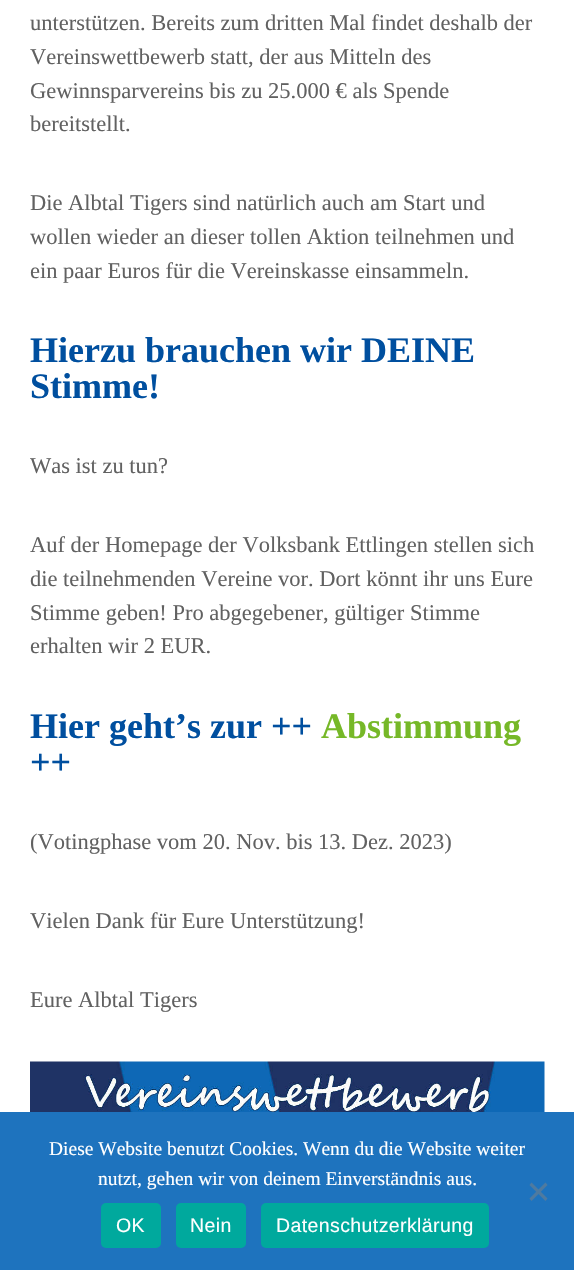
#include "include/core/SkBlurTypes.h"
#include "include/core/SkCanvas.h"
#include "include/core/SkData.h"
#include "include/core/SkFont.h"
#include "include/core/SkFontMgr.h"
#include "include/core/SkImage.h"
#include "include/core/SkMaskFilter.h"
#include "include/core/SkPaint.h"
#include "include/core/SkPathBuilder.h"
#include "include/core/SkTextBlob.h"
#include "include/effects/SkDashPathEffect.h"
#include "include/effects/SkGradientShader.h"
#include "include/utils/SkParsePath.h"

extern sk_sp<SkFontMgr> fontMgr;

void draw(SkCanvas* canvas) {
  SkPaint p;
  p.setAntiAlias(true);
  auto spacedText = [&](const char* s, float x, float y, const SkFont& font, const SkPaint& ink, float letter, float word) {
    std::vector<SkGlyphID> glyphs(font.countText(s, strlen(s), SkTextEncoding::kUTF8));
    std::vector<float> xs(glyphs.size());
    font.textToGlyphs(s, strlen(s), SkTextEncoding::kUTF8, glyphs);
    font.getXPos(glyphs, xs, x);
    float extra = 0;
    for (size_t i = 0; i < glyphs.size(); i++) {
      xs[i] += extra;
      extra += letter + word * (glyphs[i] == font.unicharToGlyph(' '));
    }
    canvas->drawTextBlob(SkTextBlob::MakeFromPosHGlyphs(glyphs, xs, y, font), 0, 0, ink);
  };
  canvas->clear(SK_ColorWHITE);
  canvas->drawImageRect(SkImages::DeferredFromEncodedData(SkData::MakeFromFileName("images/1.png")), SkRect::MakeLTRB(30, 1061, 545, 1112), SkSamplingOptions());
  p.setColor(SkColorSetRGB(30, 115, 190));
  canvas->drawRect(SkRect::MakeLTRB(0, 1112, 574, 1270), p);
  p.setColor(SkColorSetRGB(79, 122, 159));
  canvas->drawPath(SkPathBuilder().moveTo(545.5f, 1182.5f).lineTo(547.5f, 1185).lineTo(531.5f, 1201).lineTo(529.5f, 1198.5f).close().detach(), p);
  canvas->drawPath(SkPathBuilder().moveTo(529.5f, 1185).lineTo(531.5f, 1182.5f).lineTo(547.5f, 1198.5f).lineTo(545.5f, 1201).close().detach(), p);
  p.setColor(SkColorSetRGB(0, 169, 157));
  canvas->drawRoundRect(SkRect::MakeLTRB(101, 1203, 161, 1248), 5, 5, p);
  canvas->drawRoundRect(SkRect::MakeLTRB(176, 1203, 246, 1248), 5, 5, p);
  canvas->drawRoundRect(SkRect::MakeLTRB(261, 1203, 489, 1248), 5, 5, p);
  SkFont font1(fontMgr->matchFamilyStyle("Liberation Serif", SkFontStyle::Normal()), 22.5f);
  font1.setSubpixel(true);
  p.setColor(SkColorSetRGB(97, 97, 97));
  canvas->drawString("unterstützen. Bereits zum dritten Mal findet deshalb der", 30, 30, font1, p);
  canvas->drawString("Vereinswettbewerb statt, der aus Mitteln des", 30, 64, font1, p);
  canvas->drawString("Gewinnsparvereins bis zu 25.000 € als Spende", 30, 98, font1, p);
  canvas->drawString("bereitstellt.", 30, 131, font1, p);
  canvas->drawString("Die Albtal Tigers sind natürlich auch am Start und", 30, 210, font1, p);
  canvas->drawString("wollen wieder an dieser tollen Aktion teilnehmen und", 30, 244, font1, p);
  canvas->drawString("ein paar Euros für die Vereinskasse einsammeln.", 30, 278, font1, p);
  SkFont font2(fontMgr->matchFamilyStyle("Liberation Serif", SkFontStyle::Bold()), 36);
  font2.setSubpixel(true);
  p.setColor(SkColorSetRGB(0, 79, 159));
  canvas->drawString("Hierzu brauchen wir DEINE", 30, 362, font2, p);
  canvas->drawString("Stimme!", 30, 398, font2, p);
  p.setColor(SkColorSetRGB(97, 97, 97));
  canvas->drawString("Was ist zu tun?", 30, 473, font1, p);
  canvas->drawString("Auf der Homepage der Volksbank Ettlingen stellen sich", 30, 552, font1, p);
  canvas->drawString("die teilnehmenden Vereine vor. Dort könnt ihr uns Eure", 30, 586, font1, p);
  canvas->drawString("Stimme geben! Pro abgegebener, gültiger Stimme", 30, 620, font1, p);
  canvas->drawString("erhalten wir 2 EUR.", 30, 653, font1, p);
  p.setColor(SkColorSetRGB(0, 79, 159));
  canvas->drawString("Hier geht’s zur ++", 30, 738, font2, p);
  p.setColor(SkColorSetRGB(118, 184, 40));
  canvas->drawString("Abstimmung", 321, 738, font2, p);
  p.setColor(SkColorSetRGB(0, 79, 159));
  canvas->drawString("++", 30, 774, font2, p);
  p.setColor(SkColorSetRGB(97, 97, 97));
  canvas->drawString("(Votingphase vom 20. Nov. bis 13. Dez. 2023)", 30, 849, font1, p);
  canvas->drawString("Vielen Dank für Eure Unterstützung!", 30, 928, font1, p);
  canvas->drawString("Eure Albtal Tigers", 30, 1007, font1, p);
  SkFont font3(fontMgr->matchFamilyStyle("Liberation Serif", SkFontStyle::Normal()), 19.5f);
  font3.setSubpixel(true);
  p.setColor(SK_ColorWHITE);
  canvas->drawString("Diese Website benutzt Cookies. Wenn du die Website weiter", 49, 1155, font3, p);
  canvas->drawString("nutzt, gehen wir von deinem Einverständnis aus.", 98, 1185, font3, p);
  SkFont font4(fontMgr->matchFamilyStyle("Liberation Sans", SkFontStyle::Normal()), 19.5f);
  font4.setSubpixel(true);
  spacedText("OK", 116, 1232, font4, p, 0.4f, 0);
  spacedText("Nein", 190, 1232, font4, p, 0.4f, 0);
  spacedText("Datenschutzerklärung", 276, 1232, font4, p, 0.4f, 0);
}
